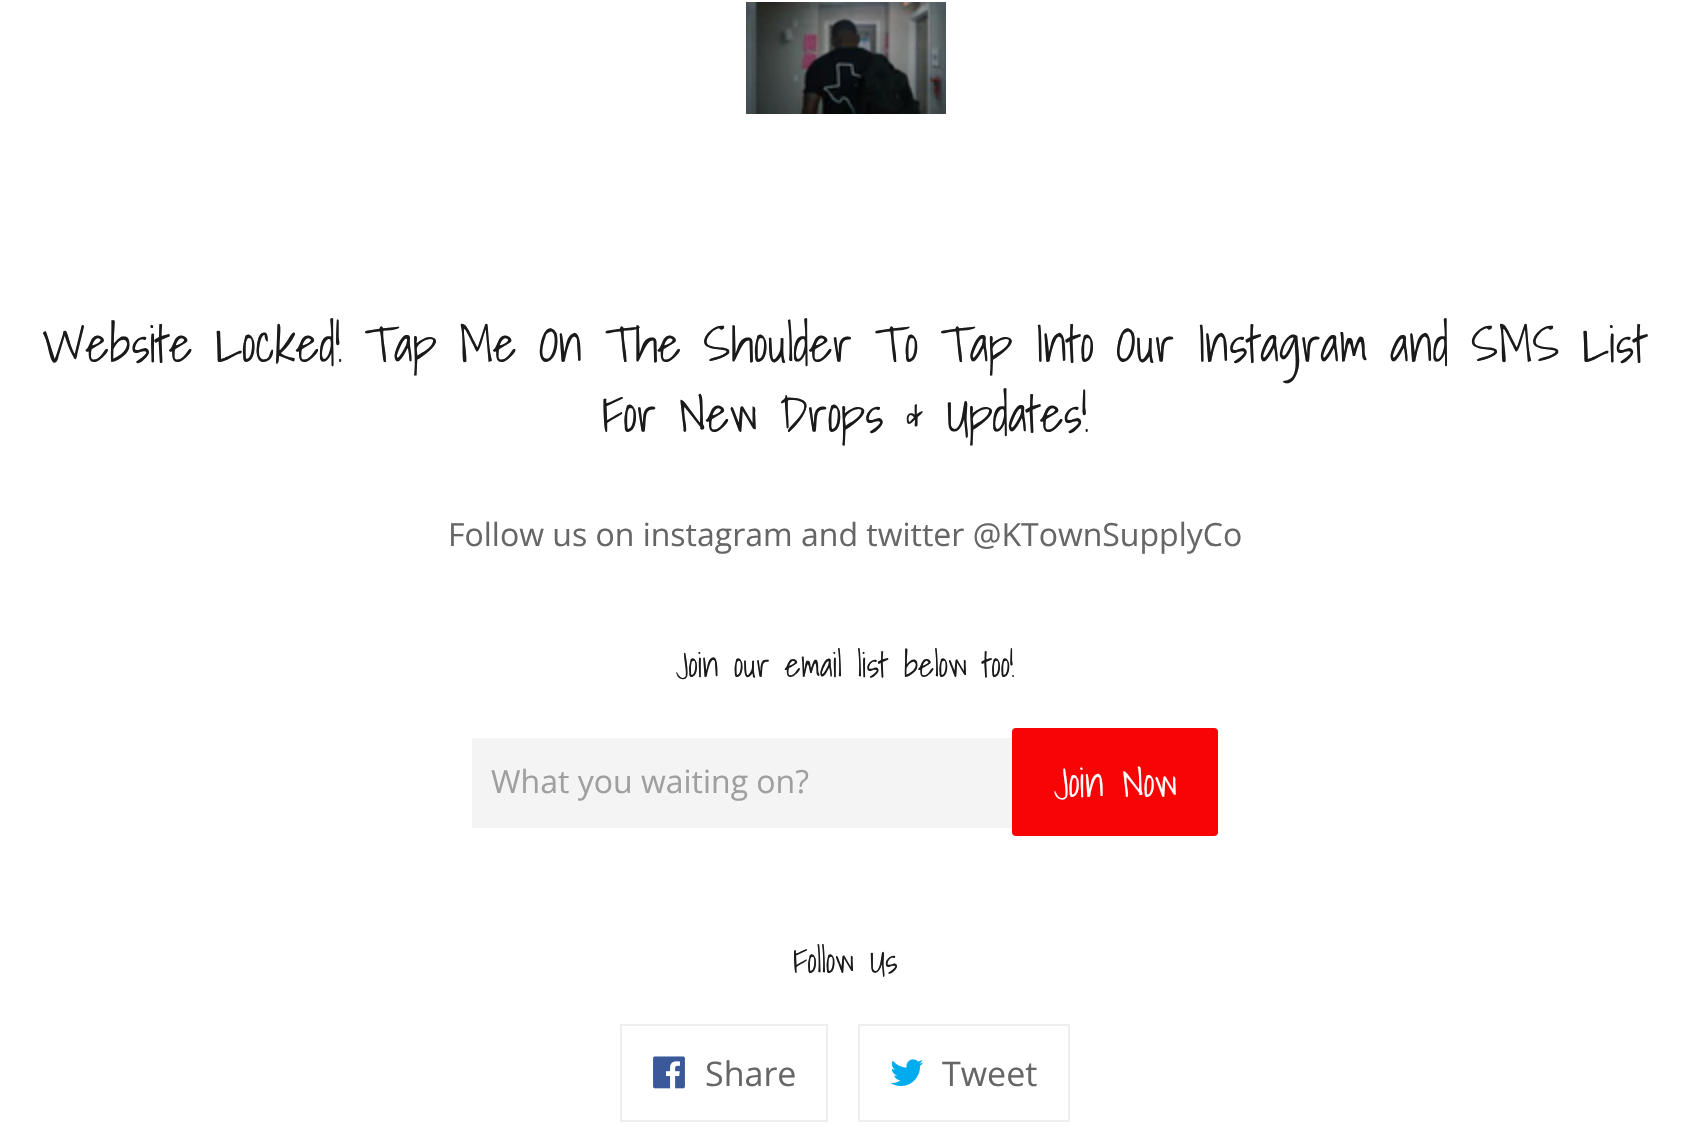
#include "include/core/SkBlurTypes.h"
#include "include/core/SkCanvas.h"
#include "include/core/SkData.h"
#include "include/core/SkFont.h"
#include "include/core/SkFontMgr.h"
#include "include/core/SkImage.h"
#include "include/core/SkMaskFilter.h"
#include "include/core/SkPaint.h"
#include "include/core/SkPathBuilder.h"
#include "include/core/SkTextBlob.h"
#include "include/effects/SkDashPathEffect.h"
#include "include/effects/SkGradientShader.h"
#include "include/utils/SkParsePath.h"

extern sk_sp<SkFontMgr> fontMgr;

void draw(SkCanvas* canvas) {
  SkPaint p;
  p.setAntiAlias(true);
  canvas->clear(SK_ColorWHITE);
  canvas->drawImageRect(SkImages::DeferredFromEncodedData(SkData::MakeFromFileName("images/1.png")), SkRect::MakeLTRB(746, 2, 946, 114), SkSamplingOptions());
  p.setColor(SkColorSetRGB(244, 244, 244));
  canvas->drawRect(SkRect::MakeLTRB(472, 738, 1012, 828), p);
  p.setColor(SkColorSetRGB(247, 4, 4));
  canvas->drawRoundRect(SkRect::MakeLTRB(1012, 728, 1218, 836), 4, 4, p);
  p.setStyle(SkPaint::kStroke_Style);
  p.setStrokeWidth(2);
  p.setColor(SkColorSetRGB(238, 238, 238));
  canvas->drawRect(SkRect::MakeLTRB(621, 1025, 827, 1121), p);
  canvas->drawImageRect(SkImages::DeferredFromEncodedData(SkData::MakeFromFileName("images/2.png")), SkRect::MakeLTRB(653, 1056, 685, 1089), SkSamplingOptions());
  canvas->drawRect(SkRect::MakeLTRB(859, 1025, 1069, 1121), p);
  canvas->drawImageRect(SkImages::DeferredFromEncodedData(SkData::MakeFromFileName("images/3.png")), SkRect::MakeLTRB(890, 1059, 924, 1086), SkSamplingOptions());
  SkFont font1(fontMgr->matchFamilyStyle("Shadows Into Light", SkFontStyle::Normal()), 50);
  font1.setSubpixel(true);
  p.setStyle(SkPaint::kFill_Style);
  p.setColor(SkColorSetRGB(26, 26, 26));
  canvas->drawString("Website Locked! Tap Me On The Shoulder To Tap Into Our Instagram and SMS List", 42, 362, font1, p);
  canvas->drawString("For New Drops & Updates!", 602, 432, font1, p);
  SkFont font2(fontMgr->matchFamilyStyle("Open Sans", SkFontStyle::Normal()), 32);
  font2.setSubpixel(true);
  p.setColor(SkColorSetRGB(102, 102, 102));
  canvas->drawString("Follow us on instagram and twitter @KTownSupplyCo", 448, 546, font2, p);
  SkFont font3(fontMgr->matchFamilyStyle("Shadows Into Light", SkFontStyle::Normal()), 34);
  font3.setSubpixel(true);
  p.setColor(SkColorSetRGB(26, 26, 26));
  canvas->drawString("Join our email list below too!", 676, 677, font3, p);
  p.setColor(SkColorSetRGB(159, 159, 159));
  canvas->drawString("What you waiting on?", 491, 793, font2, p);
  SkFont font4(fontMgr->matchFamilyStyle("Shadows Into Light", SkFontStyle::Normal()), 40);
  font4.setSubpixel(true);
  p.setColor(SK_ColorWHITE);
  canvas->drawString("Join Now", 1054, 797, font4, p);
  p.setColor(SkColorSetRGB(26, 26, 26));
  canvas->drawString("Follow Us", 793, 973, font3, p);
  SkFont font5(fontMgr->matchFamilyStyle("Open Sans", SkFontStyle::Normal()), 34);
  font5.setSubpixel(true);
  p.setColor(SkColorSetRGB(102, 102, 102));
  canvas->drawString("Share", 705, 1086, font5, p);
  canvas->drawString("Tweet", 942, 1086, font5, p);
}
